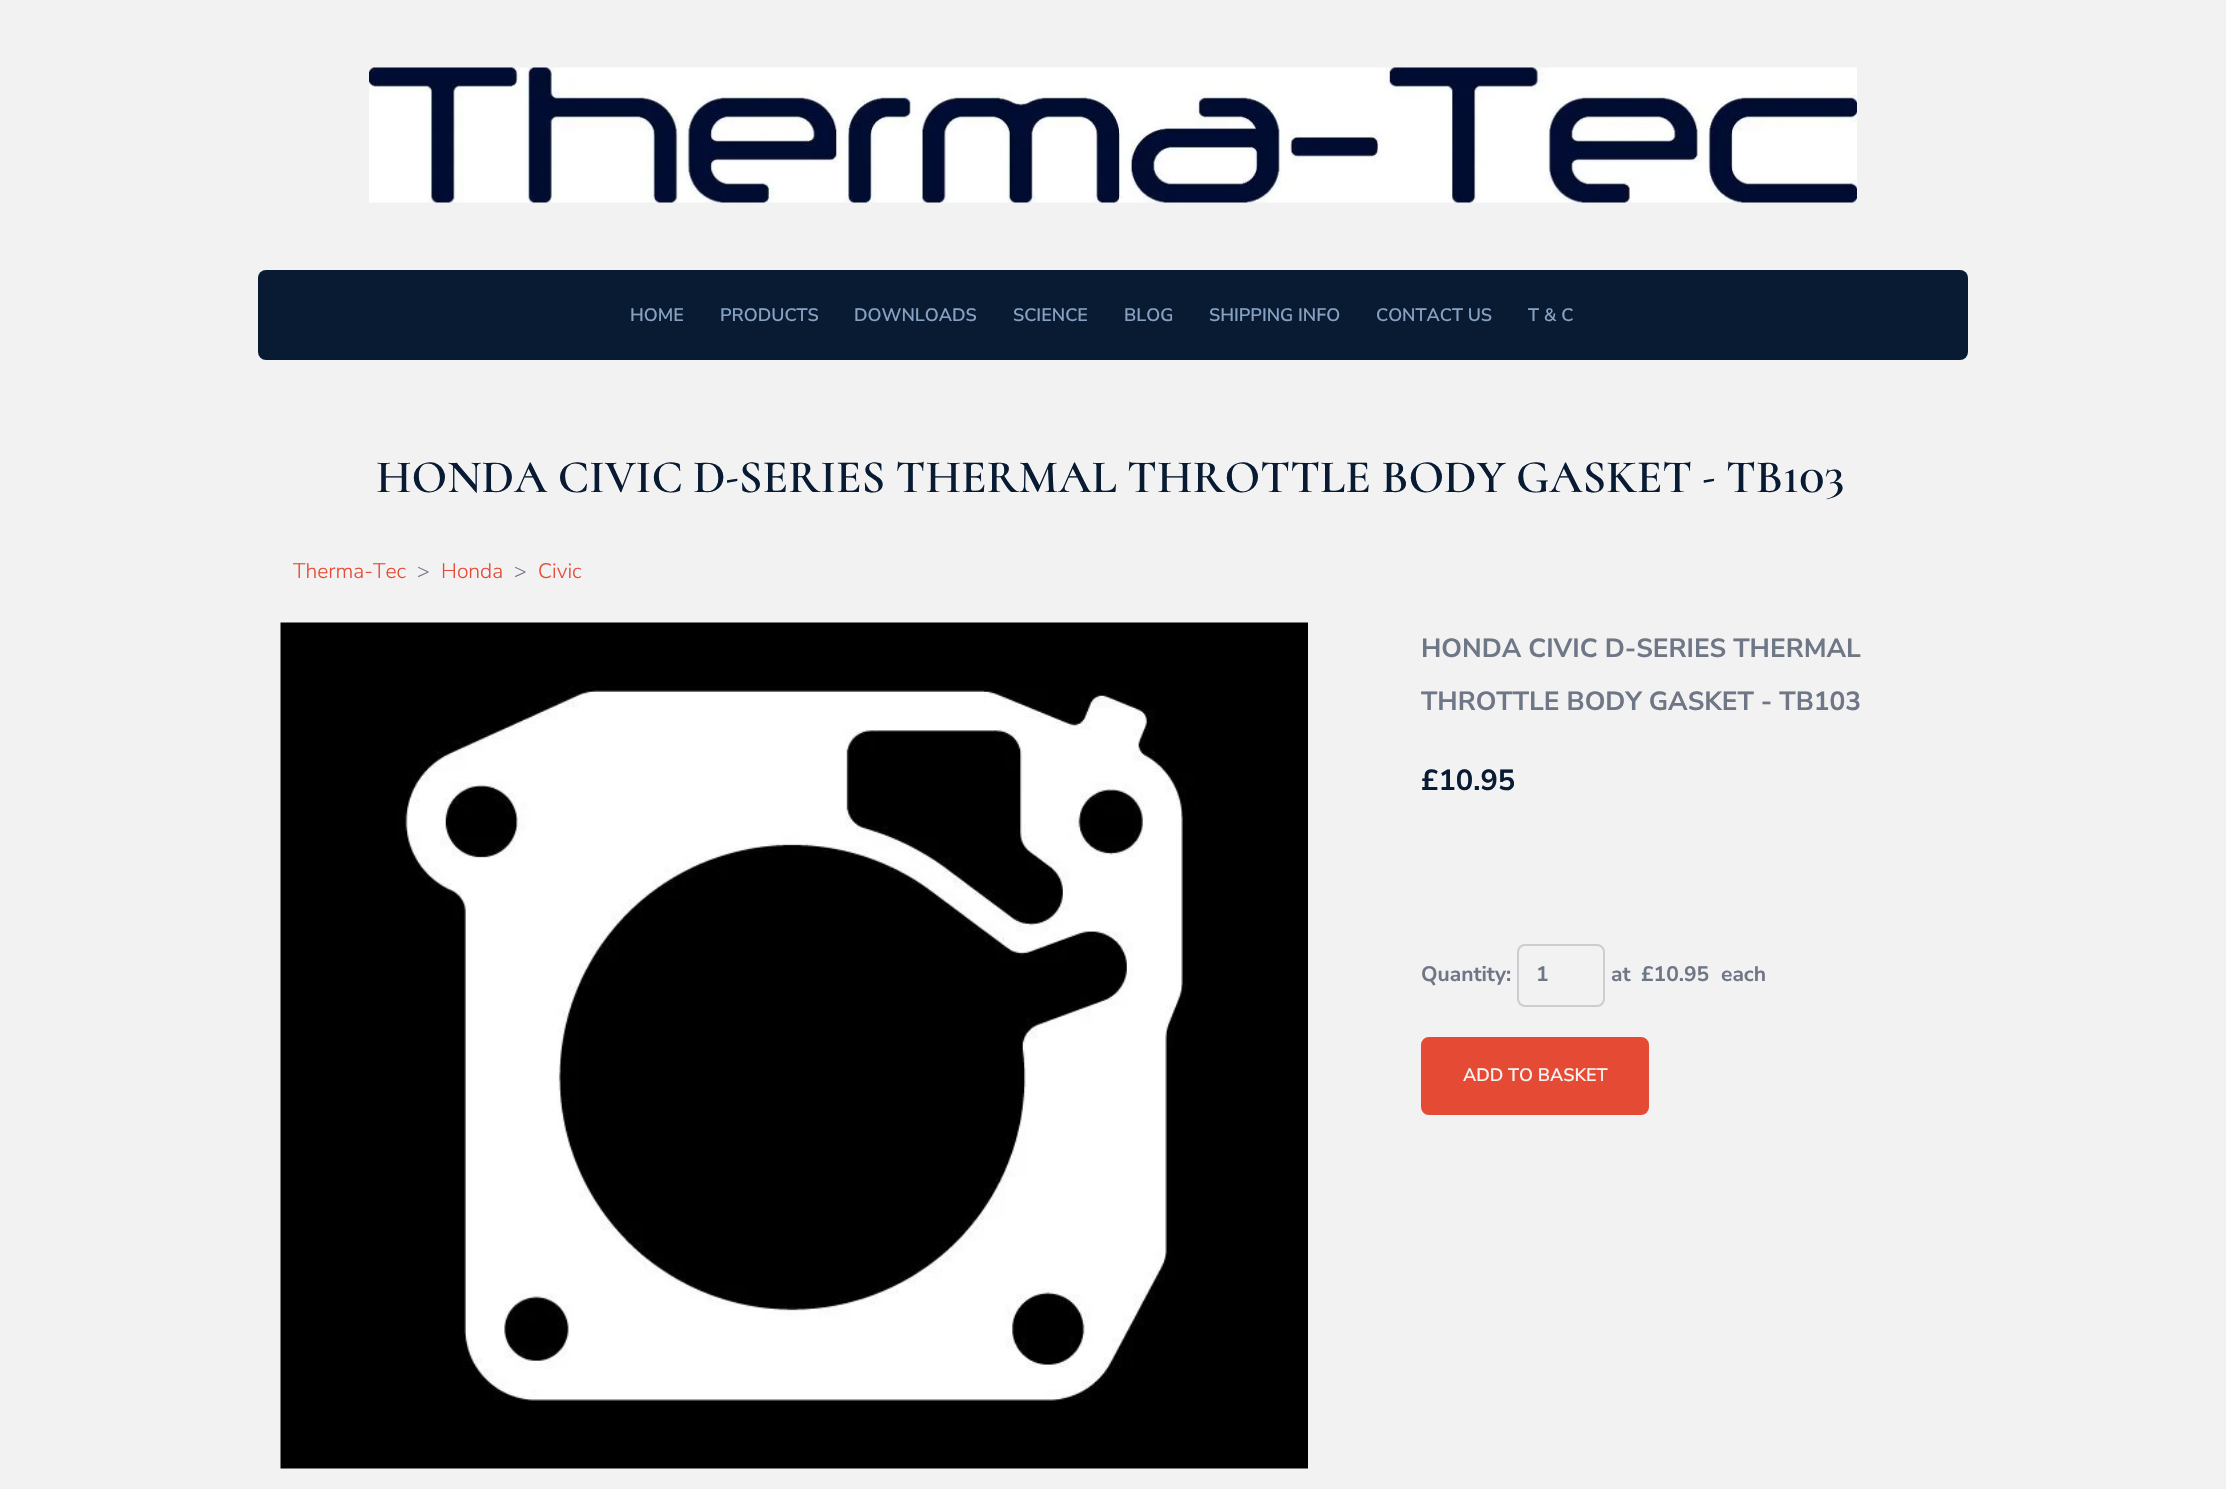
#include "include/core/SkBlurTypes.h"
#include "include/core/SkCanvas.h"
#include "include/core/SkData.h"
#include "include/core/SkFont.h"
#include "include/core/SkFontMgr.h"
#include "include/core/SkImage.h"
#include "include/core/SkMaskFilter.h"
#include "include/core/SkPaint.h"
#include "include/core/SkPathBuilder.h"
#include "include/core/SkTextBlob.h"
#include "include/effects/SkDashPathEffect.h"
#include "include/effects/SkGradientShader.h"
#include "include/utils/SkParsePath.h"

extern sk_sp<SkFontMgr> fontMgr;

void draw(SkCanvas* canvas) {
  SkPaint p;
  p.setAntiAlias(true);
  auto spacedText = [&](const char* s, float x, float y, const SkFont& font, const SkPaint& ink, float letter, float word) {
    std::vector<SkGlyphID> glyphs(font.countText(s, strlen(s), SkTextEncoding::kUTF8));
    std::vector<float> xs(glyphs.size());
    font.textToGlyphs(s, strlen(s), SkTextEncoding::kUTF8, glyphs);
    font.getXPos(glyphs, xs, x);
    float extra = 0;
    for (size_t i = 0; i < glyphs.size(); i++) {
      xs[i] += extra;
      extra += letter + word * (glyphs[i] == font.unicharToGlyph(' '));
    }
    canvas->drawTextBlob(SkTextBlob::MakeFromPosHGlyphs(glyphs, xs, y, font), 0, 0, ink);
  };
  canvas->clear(SkColorSetRGB(242, 242, 242));
  canvas->drawImageRect(SkImages::DeferredFromEncodedData(SkData::MakeFromFileName("images/1.png")), SkRect::MakeLTRB(369, 67, 1857, 203), SkSamplingOptions());
  p.setColor(SkColorSetRGB(8, 27, 51));
  canvas->drawRoundRect(SkRect::MakeLTRB(258, 270, 1968, 360), 8, 8, p);
  canvas->drawImageRect(SkImages::DeferredFromEncodedData(SkData::MakeFromFileName("images/2.png")), SkRect::MakeLTRB(280, 622, 1308, 1469), SkSamplingOptions());
  p.setStyle(SkPaint::kStroke_Style);
  p.setStrokeWidth(2);
  p.setColor(SkColorSetRGB(203, 205, 208));
  canvas->drawRoundRect(SkRect::MakeLTRB(1518, 945, 1604, 1006), 7, 7, p);
  p.setStyle(SkPaint::kFill_Style);
  p.setColor(SkColorSetRGB(229, 74, 53));
  canvas->drawRoundRect(SkRect::MakeLTRB(1422.5f, 1038.5f, 1647.5f, 1113.5f), 6.5f, 6.5f, p);
  p.setStyle(SkPaint::kStroke_Style);
  p.setStrokeWidth(3);
  canvas->drawRoundRect(SkRect::MakeLTRB(1422.5f, 1038.5f, 1647.5f, 1113.5f), 6.5f, 6.5f, p);
  SkFont font1(fontMgr->matchFamilyStyle("Nunito Sans", SkFontStyle(600, SkFontStyle::kNormal_Width, SkFontStyle::kUpright_Slant)), 18);
  font1.setSubpixel(true);
  p.setStyle(SkPaint::kFill_Style);
  p.setColor(SkColorSetRGB(134, 161, 194));
  canvas->drawString("HOME", 630, 321, font1, p);
  canvas->drawString("PRODUCTS", 720, 321, font1, p);
  canvas->drawString("DOWNLOADS", 854, 321, font1, p);
  canvas->drawString("SCIENCE", 1013, 321, font1, p);
  canvas->drawString("BLOG", 1124, 321, font1, p);
  canvas->drawString("SHIPPING INFO", 1209, 321, font1, p);
  canvas->drawString("CONTACT US", 1376, 321, font1, p);
  canvas->drawString("T & C", 1528, 321, font1, p);
  SkFont font2(fontMgr->matchFamilyStyle("Cormorant SC", SkFontStyle(600, SkFontStyle::kNormal_Width, SkFontStyle::kUpright_Slant)), 46.65f);
  font2.setSubpixel(true);
  p.setColor(SkColorSetRGB(8, 27, 51));
  spacedText("HONDA CIVIC D-SERIES THERMAL THROTTLE BODY GASKET - TB103", 376, 492, font2, p, 0, -0.5f);
  SkFont font3(fontMgr->matchFamilyStyle("Nunito Sans", SkFontStyle(300, SkFontStyle::kNormal_Width, SkFontStyle::kUpright_Slant)), 21);
  font3.setSubpixel(true);
  p.setColor(SkColorSetRGB(229, 74, 53));
  canvas->drawString("Therma-Tec", 293, 578, font3, p);
  p.setColor(SkColorSetRGB(111, 119, 135));
  canvas->drawString(">", 417, 578, font3, p);
  p.setColor(SkColorSetRGB(229, 74, 53));
  canvas->drawString("Honda", 441, 578, font3, p);
  p.setColor(SkColorSetRGB(111, 119, 135));
  canvas->drawString(">", 514, 578, font3, p);
  p.setColor(SkColorSetRGB(229, 74, 53));
  canvas->drawString("Civic", 538, 578, font3, p);
  SkFont font4(fontMgr->matchFamilyStyle("Nunito Sans", SkFontStyle::Bold()), 26.3f);
  font4.setSubpixel(true);
  p.setColor(SkColorSetRGB(111, 119, 135));
  canvas->drawString("HONDA CIVIC D-SERIES THERMAL", 1421, 657, font4, p);
  canvas->drawString("THROTTLE BODY GASKET - TB103", 1421, 710, font4, p);
  SkFont font5(fontMgr->matchFamilyStyle("Nunito Sans", SkFontStyle::Bold()), 29);
  font5.setSubpixel(true);
  p.setColor(SkColorSetRGB(8, 27, 51));
  canvas->drawString("£10.95", 1421, 790, font5, p);
  SkFont font6(fontMgr->matchFamilyStyle("Nunito Sans", SkFontStyle::Bold()), 21);
  font6.setSubpixel(true);
  p.setColor(SkColorSetRGB(111, 119, 135));
  canvas->drawString("Quantity:", 1421, 981, font6, p);
  canvas->drawString("1", 1536, 981, font6, p);
  canvas->drawString("at", 1611, 981, font6, p);
  canvas->drawString("£10.95", 1641, 981, font6, p);
  canvas->drawString("each", 1721, 981, font6, p);
  p.setColor(SkColorSetRGB(242, 242, 242));
  canvas->drawString("ADD TO BASKET", 1463, 1081, font1, p);
}
